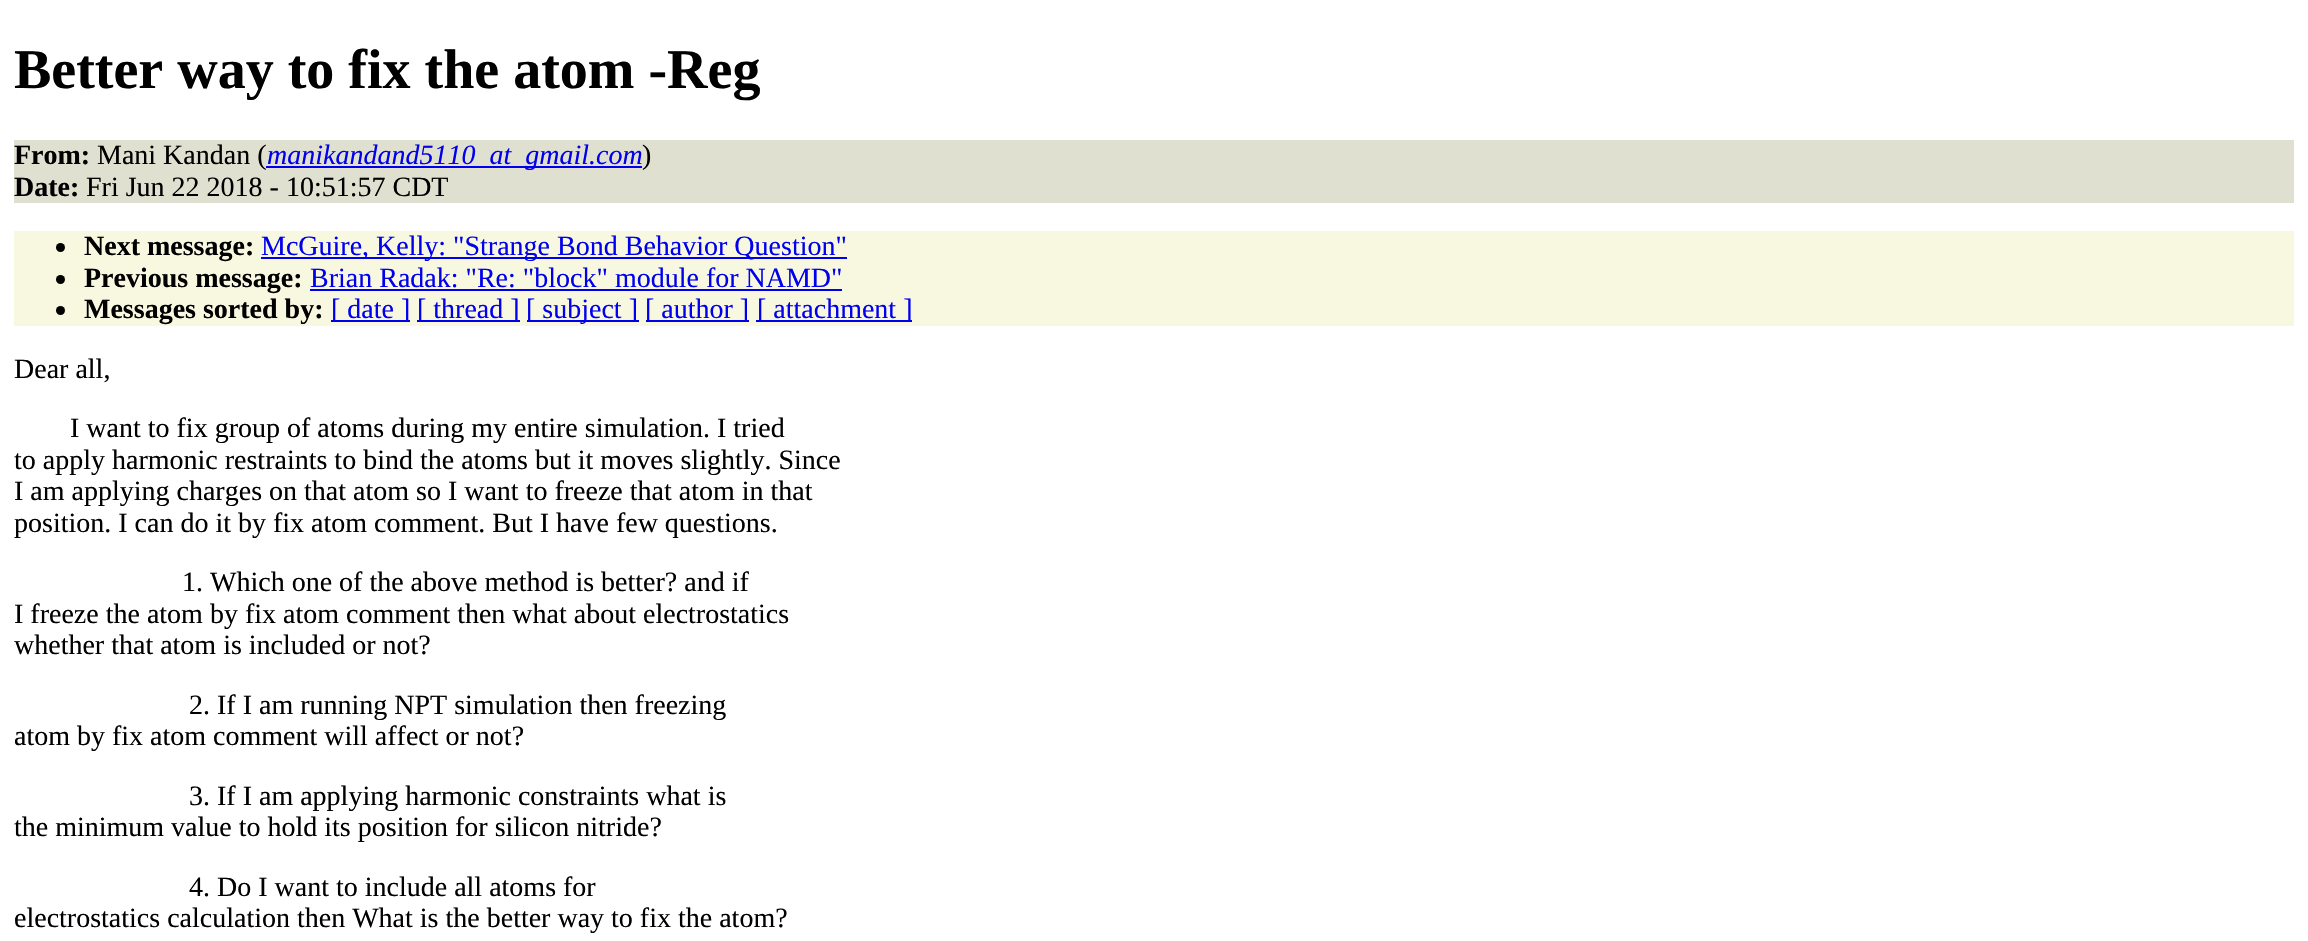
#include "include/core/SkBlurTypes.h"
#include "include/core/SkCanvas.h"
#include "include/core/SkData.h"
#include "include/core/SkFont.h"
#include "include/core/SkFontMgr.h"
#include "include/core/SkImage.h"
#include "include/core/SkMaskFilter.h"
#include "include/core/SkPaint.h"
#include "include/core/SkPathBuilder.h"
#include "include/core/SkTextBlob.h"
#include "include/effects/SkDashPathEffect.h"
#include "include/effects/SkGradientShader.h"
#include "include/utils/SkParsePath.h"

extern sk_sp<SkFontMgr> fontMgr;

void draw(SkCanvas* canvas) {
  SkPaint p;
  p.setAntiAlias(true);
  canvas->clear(SK_ColorWHITE);
  p.setColor(SkColorSetRGB(224, 224, 208));
  canvas->drawRect(SkRect::MakeLTRB(14, 140, 2294, 203), p);
  p.setColor(SkColorSetRGB(0, 0, 238));
  canvas->drawRect(SkRect::MakeLTRB(266, 166, 642, 168), p);
  p.setColor(SkColorSetRGB(248, 248, 224));
  canvas->drawRect(SkRect::MakeLTRB(14, 231, 2294, 326), p);
  p.setColor(SK_ColorBLACK);
  canvas->drawCircle(60.5f, 247.5f, 4.5f, p);
  p.setColor(SkColorSetRGB(0, 0, 238));
  canvas->drawRect(SkRect::MakeLTRB(261, 257, 847, 259), p);
  p.setColor(SK_ColorBLACK);
  canvas->drawCircle(60.5f, 279.5f, 4.5f, p);
  p.setColor(SkColorSetRGB(0, 0, 238));
  canvas->drawRect(SkRect::MakeLTRB(310, 289, 842, 291), p);
  p.setColor(SK_ColorBLACK);
  canvas->drawCircle(60.5f, 310.5f, 4.5f, p);
  p.setColor(SkColorSetRGB(0, 0, 238));
  canvas->drawRect(SkRect::MakeLTRB(331, 320, 410, 322), p);
  canvas->drawRect(SkRect::MakeLTRB(417, 320, 520, 322), p);
  canvas->drawRect(SkRect::MakeLTRB(527, 320, 639, 322), p);
  canvas->drawRect(SkRect::MakeLTRB(646, 320, 749, 322), p);
  canvas->drawRect(SkRect::MakeLTRB(756, 320, 912, 322), p);
  SkFont font1(fontMgr->matchFamilyStyle("Liberation Serif", SkFontStyle::Bold()), 56);
  font1.setSubpixel(true);
  p.setColor(SK_ColorBLACK);
  canvas->drawString("Better way to fix the atom -Reg", 14, 88, font1, p);
  SkFont font2(fontMgr->matchFamilyStyle("Liberation Serif", SkFontStyle::Bold()), 28);
  font2.setSubpixel(true);
  canvas->drawString("From:", 14, 164, font2, p);
  SkFont font3(fontMgr->matchFamilyStyle("Liberation Serif", SkFontStyle::Normal()), 28);
  font3.setSubpixel(true);
  canvas->drawString("Mani Kandan (", 97, 164, font3, p);
  SkFont font4(fontMgr->matchFamilyStyle("Liberation Serif", SkFontStyle::Italic()), 28);
  font4.setSubpixel(true);
  p.setColor(SkColorSetRGB(0, 0, 238));
  canvas->drawString("manikandand5110_at_gmail.com", 267, 164, font4, p);
  p.setColor(SK_ColorBLACK);
  canvas->drawString(")", 642, 164, font3, p);
  canvas->drawString("Date:", 14, 196, font2, p);
  canvas->drawString("Fri Jun 22 2018 - 10:51:57 CDT", 86, 196, font3, p);
  canvas->drawString("Next message:", 84, 255, font2, p);
  p.setColor(SkColorSetRGB(0, 0, 238));
  canvas->drawString("McGuire, Kelly: \"Strange Bond Behavior Question\"", 261, 255, font3, p);
  p.setColor(SK_ColorBLACK);
  canvas->drawString("Previous message:", 84, 287, font2, p);
  p.setColor(SkColorSetRGB(0, 0, 238));
  canvas->drawString("Brian Radak: \"Re: \"block\" module for NAMD\"", 310, 287, font3, p);
  p.setColor(SK_ColorBLACK);
  canvas->drawString("Messages sorted by:", 84, 318, font2, p);
  p.setColor(SkColorSetRGB(0, 0, 238));
  canvas->drawString("[ date ]", 331, 318, font3, p);
  canvas->drawString("[ thread ]", 417, 318, font3, p);
  canvas->drawString("[ subject ]", 526, 318, font3, p);
  canvas->drawString("[ author ]", 645, 318, font3, p);
  canvas->drawString("[ attachment ]", 757, 318, font3, p);
  p.setColor(SK_ColorBLACK);
  canvas->drawString("Dear all,", 14, 378, font3, p);
  canvas->drawString("I want to fix group of atoms during my entire simulation. I tried", 70, 437, font3, p);
  canvas->drawString("to apply harmonic restraints to bind the atoms but it moves slightly. Since", 14, 469, font3, p);
  canvas->drawString("I am applying charges on that atom so I want to freeze that atom in that", 14, 500, font3, p);
  canvas->drawString("position. I can do it by fix atom comment. But I have few questions.", 14, 532, font3, p);
  canvas->drawString("1. Which one of the above method is better? and if", 182, 591, font3, p);
  canvas->drawString("I freeze the atom by fix atom comment then what about electrostatics", 14, 623, font3, p);
  canvas->drawString("whether that atom is included or not?", 14, 654, font3, p);
  canvas->drawString("2. If I am running NPT simulation then freezing", 189, 714, font3, p);
  canvas->drawString("atom by fix atom comment will affect or not?", 14, 745, font3, p);
  canvas->drawString("3. If I am applying harmonic constraints what is", 189, 805, font3, p);
  canvas->drawString("the minimum value to hold its position for silicon nitride?", 14, 836, font3, p);
  canvas->drawString("4. Do I want to include all atoms for", 189, 896, font3, p);
  canvas->drawString("electrostatics calculation then What is the better way to fix the atom?", 14, 927, font3, p);
}
